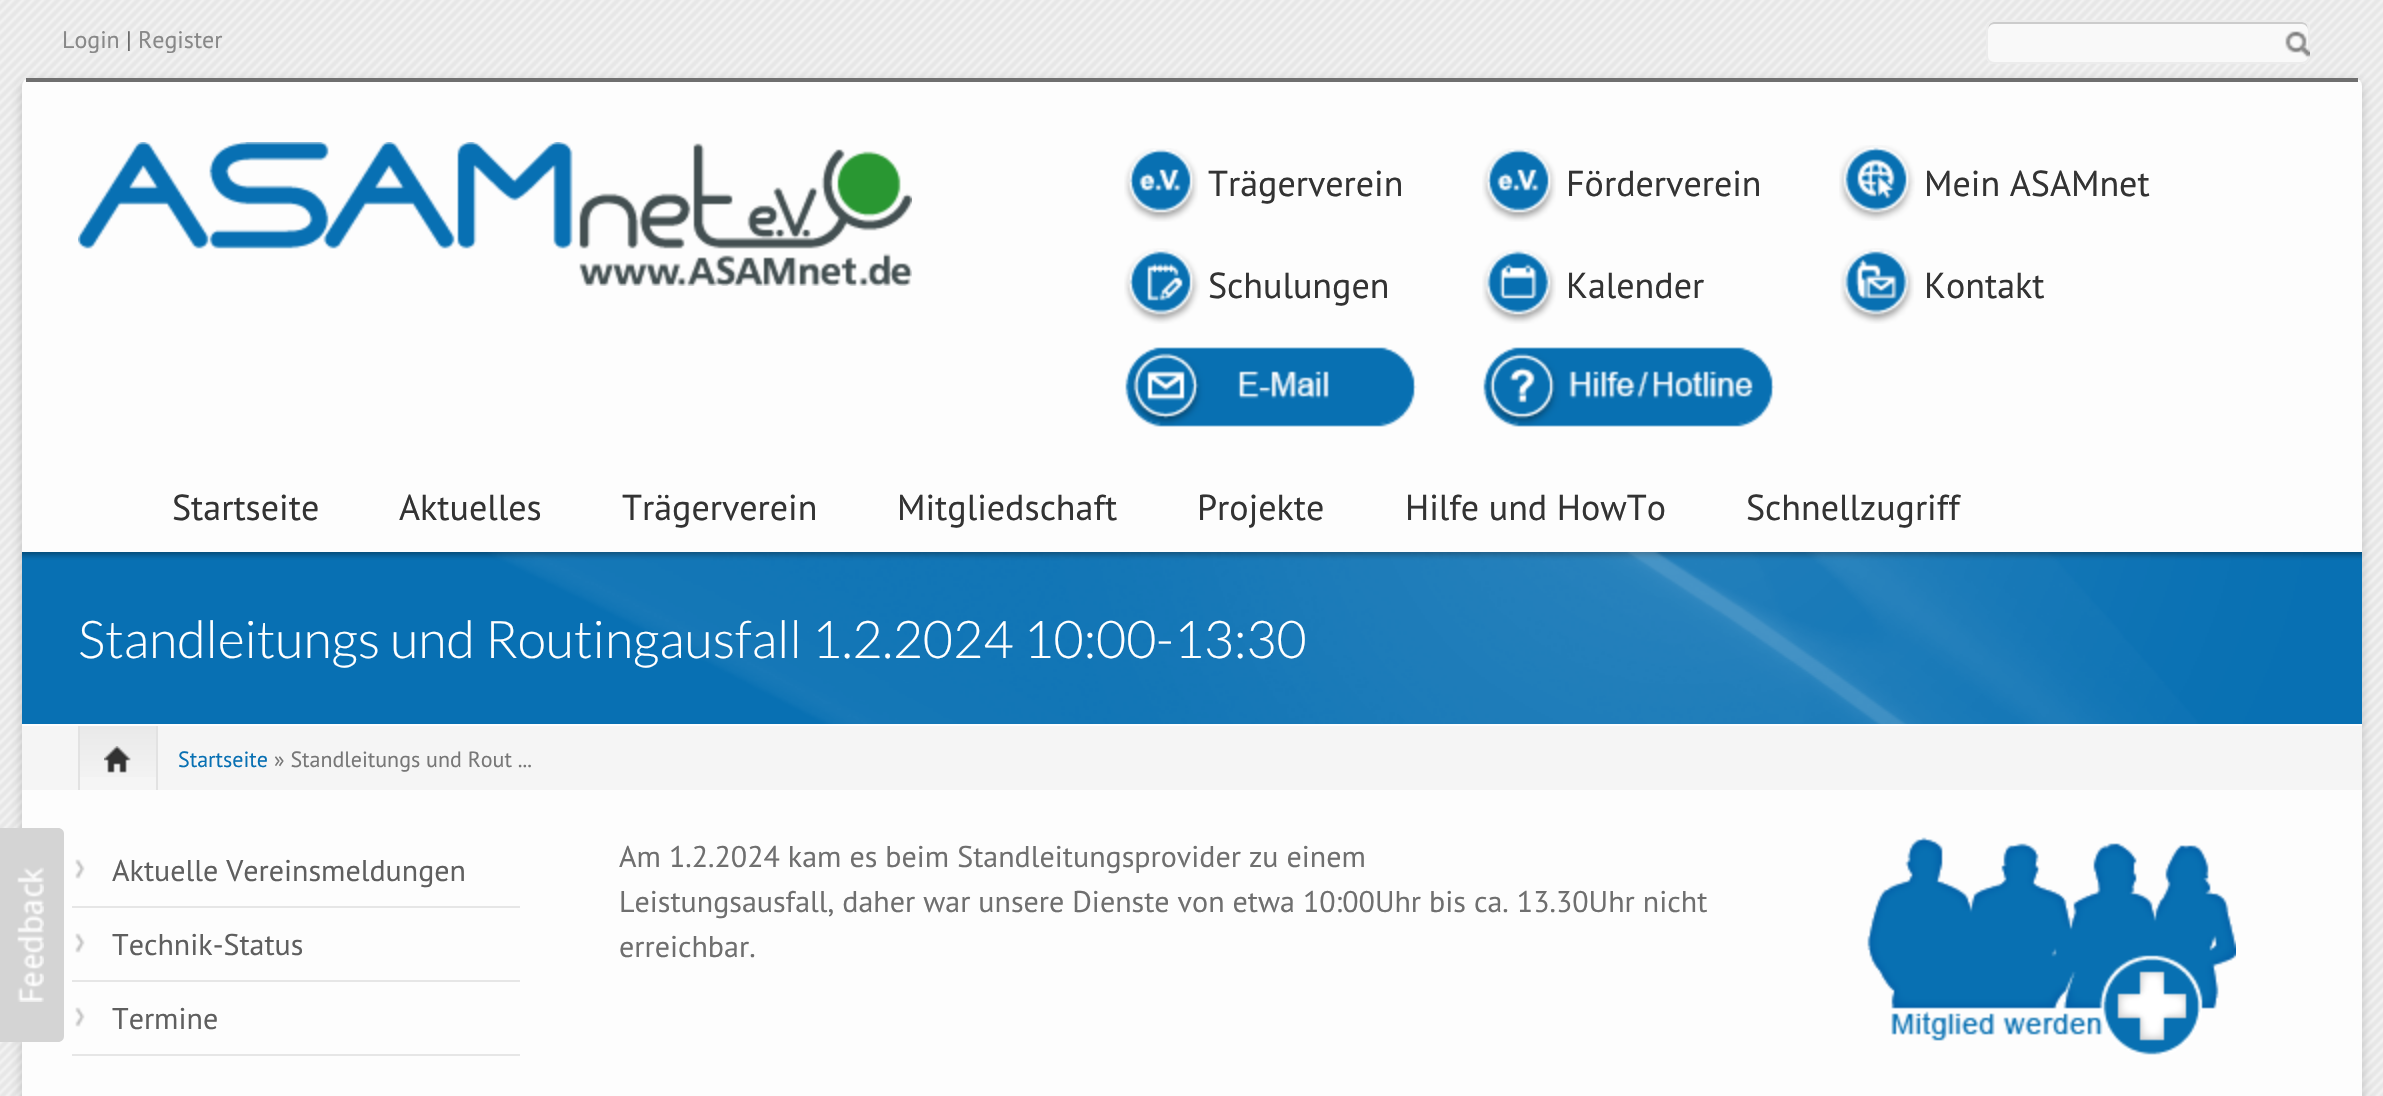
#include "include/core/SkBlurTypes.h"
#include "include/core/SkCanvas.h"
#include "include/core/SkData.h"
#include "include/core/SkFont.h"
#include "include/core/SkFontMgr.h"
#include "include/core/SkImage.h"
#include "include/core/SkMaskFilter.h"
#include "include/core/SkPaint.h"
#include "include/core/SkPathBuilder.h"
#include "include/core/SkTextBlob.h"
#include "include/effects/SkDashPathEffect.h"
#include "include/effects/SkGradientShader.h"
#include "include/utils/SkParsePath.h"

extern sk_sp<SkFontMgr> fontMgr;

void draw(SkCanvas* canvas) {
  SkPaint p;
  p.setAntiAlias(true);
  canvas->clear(SK_ColorWHITE);
  canvas->drawImageRect(SkImages::DeferredFromEncodedData(SkData::MakeFromFileName("images/1.png")), SkRect::MakeLTRB(0, 0, 2383, 1096), SkSamplingOptions());
  p.setColor(SkColorSetARGB(64, 50, 50, 50));
  p.setMaskFilter(SkMaskFilter::MakeBlur(kNormal_SkBlurStyle, 6));
  canvas->drawRoundRect(SkRect::MakeLTRB(22, 82, 2362, 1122), 8, 8, p);
  p.setMaskFilter(nullptr);
  p.setColor(SkColorSetRGB(249, 249, 249));
  canvas->drawRoundRect(SkRect::MakeLTRB(1986, 20, 2310, 64), 8, 8, p);
  p.setColor(SkColorSetRGB(204, 204, 204));
  canvas->drawPath(SkPathBuilder().moveTo(1994, 24).lineTo(2302, 24).cubicTo(2305, 24, 2308, 27, 2308, 30).cubicTo(2308, 26, 2307, 22, 2302, 22).lineTo(1993, 22).cubicTo(1989, 23, 1988, 27, 1988, 30).cubicTo(1988, 27, 1991, 24, 1994, 24).close().detach(), p);
  p.setStyle(SkPaint::kStroke_Style);
  p.setStrokeWidth(2);
  p.setColor(SkColorSetRGB(236, 236, 236));
  canvas->drawRoundRect(SkRect::MakeLTRB(1987, 21, 2309, 63), 7, 7, p);
  canvas->drawImageRect(SkImages::DeferredFromEncodedData(SkData::MakeFromFileName("images/2.png")), SkRect::MakeLTRB(2285, 31, 2310, 58), SkSamplingOptions());
  p.setStyle(SkPaint::kFill_Style);
  p.setColor(SkColorSetRGB(253, 253, 253));
  canvas->drawRoundRect(SkRect::MakeLTRB(22, 78, 2362, 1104), 8, 8, p);
  p.setColor(SkColorSetRGB(212, 212, 212));
  canvas->drawPath(SkPathBuilder().moveTo(0, 828).lineTo(58, 828).cubicTo(61.5f, 828, 64, 830.5f, 64, 834).lineTo(64, 1036).cubicTo(64, 1039.5f, 61.5f, 1042, 58, 1042).lineTo(0, 1042).close().detach(), p);
  canvas->drawImageRect(SkImages::DeferredFromEncodedData(SkData::MakeFromFileName("images/3.png")), SkRect::MakeLTRB(17, 867, 44, 1002), SkSamplingOptions());
  p.setColor(SkColorSetRGB(111, 111, 111));
  canvas->drawRect(SkRect::MakeLTRB(26, 78, 2358, 82), p);
  canvas->drawImageRect(SkImages::DeferredFromEncodedData(SkData::MakeFromFileName("images/4.png")), SkRect::MakeLTRB(78, 142, 912, 286), SkSamplingOptions());
  canvas->drawImageRect(SkImages::DeferredFromEncodedData(SkData::MakeFromFileName("images/5.png")), SkRect::MakeLTRB(1124, 148, 1198, 222), SkSamplingOptions());
  canvas->drawImageRect(SkImages::DeferredFromEncodedData(SkData::MakeFromFileName("images/5.png")), SkRect::MakeLTRB(1482, 148, 1556, 222), SkSamplingOptions());
  canvas->drawImageRect(SkImages::DeferredFromEncodedData(SkData::MakeFromFileName("images/6.png")), SkRect::MakeLTRB(1839, 145, 1915, 221), SkSamplingOptions());
  canvas->drawImageRect(SkImages::DeferredFromEncodedData(SkData::MakeFromFileName("images/7.png")), SkRect::MakeLTRB(1124, 248, 1200, 324), SkSamplingOptions());
  canvas->drawImageRect(SkImages::DeferredFromEncodedData(SkData::MakeFromFileName("images/8.png")), SkRect::MakeLTRB(1482, 249, 1556, 324), SkSamplingOptions());
  canvas->drawImageRect(SkImages::DeferredFromEncodedData(SkData::MakeFromFileName("images/9.png")), SkRect::MakeLTRB(1840, 248, 1914, 324), SkSamplingOptions());
  canvas->drawImageRect(SkImages::DeferredFromEncodedData(SkData::MakeFromFileName("images/10.png")), SkRect::MakeLTRB(1125, 347, 1417, 427), SkSamplingOptions());
  canvas->drawImageRect(SkImages::DeferredFromEncodedData(SkData::MakeFromFileName("images/11.png")), SkRect::MakeLTRB(1483, 347, 1775, 427), SkSamplingOptions());
  p.setColor(SkColorSetRGB(8, 112, 179));
  canvas->drawRect(SkRect::MakeLTRB(22, 552, 2362, 724), p);
  canvas->drawImageRect(SkImages::DeferredFromEncodedData(SkData::MakeFromFileName("images/12.png")), SkRect::MakeLTRB(22, 552, 2362, 724), SkSamplingOptions());
  p.setColor(SkColorSetRGB(245, 245, 245));
  canvas->drawRect(SkRect::MakeLTRB(22, 726, 2362, 790), p);
  {
    const SkColor colors[] = {SkColorSetRGB(233, 233, 233), SkColorSetRGB(245, 245, 245)};
    const float stops[] = {0, 1};
    const SkPoint ends[] = {{118, 726}, {118, 790}};
    p.setShader(SkGradientShader::MakeLinear(ends, colors, stops, 2, SkTileMode::kClamp));
    p.setAlpha(255);
  }
  canvas->drawRect(SkRect::MakeLTRB(80, 726, 156, 777), p);
  p.setShader(nullptr);
  p.setColor(SkColorSetRGB(226, 226, 226));
  canvas->drawRect(SkRect::MakeLTRB(156, 726, 158, 790), p);
  canvas->drawRect(SkRect::MakeLTRB(78, 726, 80, 790), p);
  canvas->drawImageRect(SkImages::DeferredFromEncodedData(SkData::MakeFromFileName("images/13.png")), SkRect::MakeLTRB(104, 746, 131, 773), SkSamplingOptions());
  canvas->drawImageRect(SkImages::DeferredFromEncodedData(SkData::MakeFromFileName("images/14.png")), SkRect::MakeLTRB(75, 859, 85, 879), SkSamplingOptions());
  p.setColor(SkColorSetRGB(230, 230, 230));
  canvas->drawRect(SkRect::MakeLTRB(72, 906, 520, 908), p);
  canvas->drawImageRect(SkImages::DeferredFromEncodedData(SkData::MakeFromFileName("images/14.png")), SkRect::MakeLTRB(75, 933, 85, 953), SkSamplingOptions());
  canvas->drawRect(SkRect::MakeLTRB(72, 980, 520, 982), p);
  canvas->drawImageRect(SkImages::DeferredFromEncodedData(SkData::MakeFromFileName("images/14.png")), SkRect::MakeLTRB(75, 1007, 85, 1027), SkSamplingOptions());
  canvas->drawRect(SkRect::MakeLTRB(72, 1054, 520, 1056), p);
  canvas->drawImageRect(SkImages::DeferredFromEncodedData(SkData::MakeFromFileName("images/15.png")), SkRect::MakeLTRB(1867, 837, 2236, 1055), SkSamplingOptions());
  SkFont font1(fontMgr->matchFamilyStyle("PT Sans", SkFontStyle::Normal()), 24);
  font1.setSubpixel(true);
  p.setColor(SkColorSetRGB(136, 136, 136));
  canvas->drawString("Login", 62, 48, font1, p);
  p.setColor(SkColorSetRGB(102, 102, 102));
  canvas->drawString("|", 126, 48, font1, p);
  p.setColor(SkColorSetRGB(136, 136, 136));
  canvas->drawString("Register", 138, 48, font1, p);
  SkFont font2(fontMgr->matchFamilyStyle("PT Sans", SkFontStyle::Normal()), 36);
  font2.setSubpixel(true);
  p.setColor(SkColorSetRGB(51, 51, 51));
  canvas->drawString("Trägerverein", 1208, 196, font2, p);
  canvas->drawString("Förderverein", 1566, 196, font2, p);
  canvas->drawString("Mein ASAMnet", 1924, 196, font2, p);
  canvas->drawString("Schulungen", 1208, 298, font2, p);
  canvas->drawString("Kalender", 1566, 298, font2, p);
  canvas->drawString("Kontakt", 1924, 298, font2, p);
  canvas->drawString("Startseite", 172, 520, font2, p);
  canvas->drawString("Aktuelles", 399, 520, font2, p);
  canvas->drawString("Trägerverein", 622, 520, font2, p);
  canvas->drawString("Mitgliedschaft", 897, 520, font2, p);
  canvas->drawString("Projekte", 1197, 520, font2, p);
  canvas->drawString("Hilfe und HowTo", 1405, 520, font2, p);
  canvas->drawString("Schnellzugriff", 1746, 520, font2, p);
  SkFont font3(fontMgr->matchFamilyStyle("Lato", SkFontStyle(300, SkFontStyle::kNormal_Width, SkFontStyle::kUpright_Slant)), 52);
  font3.setSubpixel(true);
  p.setColor(SK_ColorWHITE);
  canvas->drawString("Standleitungs und Routingausfall 1.2.2024 10:00-13:30", 78, 658, font3, p);
  SkFont font4(fontMgr->matchFamilyStyle("PT Sans", SkFontStyle::Normal()), 22);
  font4.setSubpixel(true);
  p.setColor(SkColorSetRGB(8, 112, 179));
  canvas->drawString("Startseite", 178, 767, font4, p);
  p.setColor(SkColorSetRGB(119, 119, 119));
  canvas->drawString("» Standleitungs und Rout ...", 274, 767, font4, p);
  SkFont font5(fontMgr->matchFamilyStyle("PT Sans", SkFontStyle::Normal()), 30);
  font5.setSubpixel(true);
  p.setColor(SkColorSetRGB(95, 95, 95));
  canvas->drawString("Aktuelle Vereinsmeldungen", 112, 881, font5, p);
  canvas->drawString("Technik-Status", 112, 955, font5, p);
  canvas->drawString("Termine", 112, 1029, font5, p);
  p.setColor(SkColorSetRGB(111, 111, 111));
  canvas->drawString("Am 1.2.2024 kam es beim Standleitungsprovider zu einem", 619, 867, font5, p);
  canvas->drawString("Leistungsausfall, daher war unsere Dienste von etwa 10:00Uhr bis ca. 13.30Uhr nicht", 619, 912, font5, p);
  canvas->drawString("erreichbar.", 619, 957, font5, p);
}
